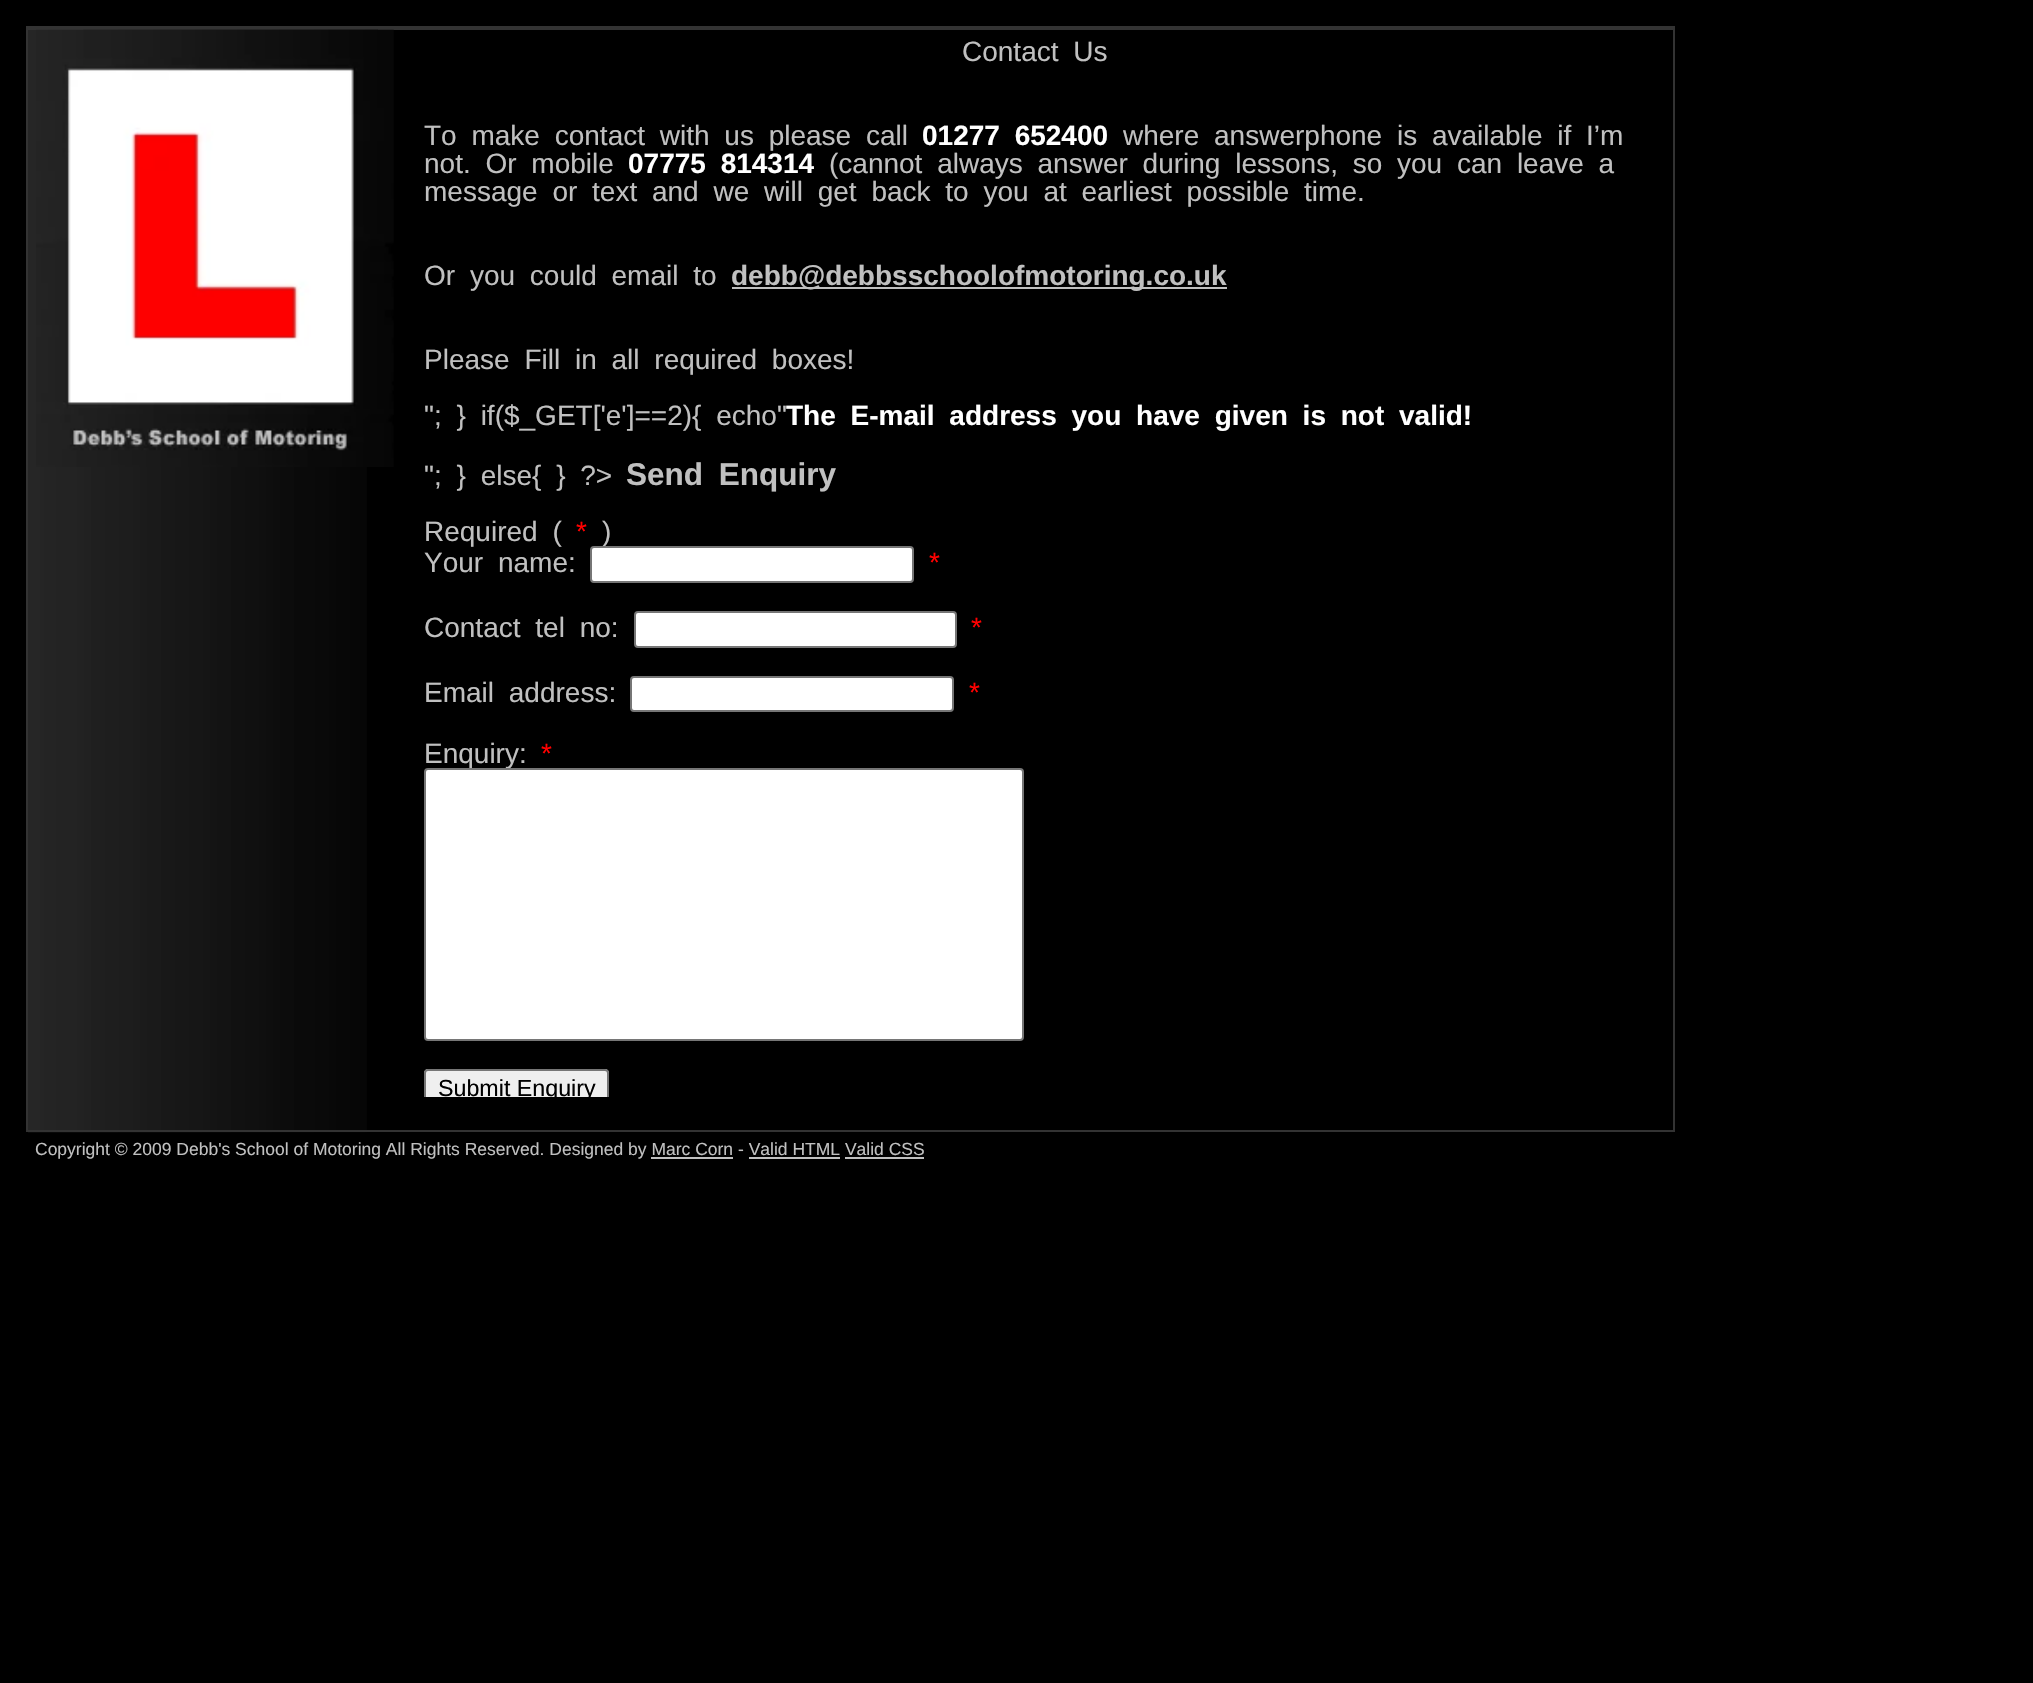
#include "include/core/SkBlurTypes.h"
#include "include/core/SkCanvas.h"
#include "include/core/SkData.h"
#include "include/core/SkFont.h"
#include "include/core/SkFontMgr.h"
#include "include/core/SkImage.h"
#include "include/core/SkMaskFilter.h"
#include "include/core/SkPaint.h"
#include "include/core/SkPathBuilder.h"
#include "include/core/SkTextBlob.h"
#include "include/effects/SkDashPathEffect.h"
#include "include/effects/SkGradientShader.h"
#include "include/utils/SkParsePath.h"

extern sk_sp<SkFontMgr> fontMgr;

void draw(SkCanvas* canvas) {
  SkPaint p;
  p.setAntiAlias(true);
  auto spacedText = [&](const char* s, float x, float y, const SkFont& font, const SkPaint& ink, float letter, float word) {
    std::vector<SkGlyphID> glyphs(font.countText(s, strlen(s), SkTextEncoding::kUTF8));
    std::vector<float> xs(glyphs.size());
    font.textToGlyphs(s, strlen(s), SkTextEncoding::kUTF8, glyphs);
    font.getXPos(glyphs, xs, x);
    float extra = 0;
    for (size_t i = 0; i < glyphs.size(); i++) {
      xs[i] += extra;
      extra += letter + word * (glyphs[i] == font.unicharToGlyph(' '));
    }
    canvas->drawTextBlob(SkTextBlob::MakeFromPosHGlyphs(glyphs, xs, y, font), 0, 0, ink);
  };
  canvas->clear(SK_ColorBLACK);
  canvas->drawImageRect(SkImages::DeferredFromEncodedData(SkData::MakeFromFileName("images/1.png")), SkRect::MakeLTRB(28, 30, 367, 1133), SkSamplingOptions());
  p.setStyle(SkPaint::kStroke_Style);
  p.setStrokeWidth(2);
  p.setColor(SkColorSetRGB(51, 51, 51));
  canvas->drawRect(SkRect::MakeLTRB(27, 27, 1674, 1131), p);
  p.setStyle(SkPaint::kFill_Style);
  canvas->drawRect(SkRect::MakeLTRB(28, 28, 1673, 30), p);
  canvas->drawImageRect(SkImages::DeferredFromEncodedData(SkData::MakeFromFileName("images/2.png")), SkRect::MakeLTRB(83, 29, 378, 30), SkSamplingOptions());
  canvas->drawImageRect(SkImages::DeferredFromEncodedData(SkData::MakeFromFileName("images/3.png")), SkRect::MakeLTRB(36, 29, 394, 467), SkSamplingOptions());
  p.setColor(SkColorSetRGB(192, 192, 192));
  canvas->drawRect(SkRect::MakeLTRB(732, 287, 1227, 289), p);
  p.setColor(SK_ColorWHITE);
  canvas->drawRoundRect(SkRect::MakeLTRB(635, 612, 956, 647), 3, 3, p);
  p.setStyle(SkPaint::kStroke_Style);
  p.setColor(SkColorSetRGB(118, 118, 118));
  canvas->drawRoundRect(SkRect::MakeLTRB(635, 612, 956, 647), 3, 3, p);
  p.setStyle(SkPaint::kFill_Style);
  p.setColor(SK_ColorWHITE);
  canvas->drawRoundRect(SkRect::MakeLTRB(631, 677, 953, 711), 3, 3, p);
  p.setStyle(SkPaint::kStroke_Style);
  p.setColor(SkColorSetRGB(118, 118, 118));
  canvas->drawRoundRect(SkRect::MakeLTRB(631, 677, 953, 711), 3, 3, p);
  p.setStyle(SkPaint::kFill_Style);
  p.setColor(SkColorSetRGB(239, 239, 239));
  canvas->drawPath(SkPathBuilder().moveTo(428, 1069).lineTo(605, 1069).cubicTo(607, 1069, 609, 1071, 609, 1073).lineTo(609, 1097).lineTo(424, 1097).lineTo(424, 1073).cubicTo(424, 1071, 426, 1069, 428, 1069).close().detach(), p);
  canvas->save();
  canvas->clipRect(SkRect::MakeLTRB(397, 30, 1673, 1097));
  p.setStyle(SkPaint::kStroke_Style);
  p.setColor(SkColorSetRGB(118, 118, 118));
  canvas->drawRoundRect(SkRect::MakeLTRB(425, 1070, 608, 1105), 3, 3, p);
  canvas->restore();
  p.setStyle(SkPaint::kFill_Style);
  p.setColor(SkColorSetRGB(192, 192, 192));
  canvas->drawRect(SkRect::MakeLTRB(651, 1157, 733, 1159), p);
  canvas->drawRect(SkRect::MakeLTRB(749, 1157, 840, 1159), p);
  canvas->drawRect(SkRect::MakeLTRB(845, 1157, 924, 1159), p);
  SkFont font1(fontMgr->matchFamilyStyle("Liberation Sans", SkFontStyle::Normal()), 28);
  font1.setSubpixel(true);
  spacedText("Contact Us", 962, 61, font1, p, 0, 7);
  spacedText("To make contact with us please call", 424, 145, font1, p, 0, 7);
  SkFont font2(fontMgr->matchFamilyStyle("Liberation Sans", SkFontStyle::Bold()), 28);
  font2.setSubpixel(true);
  p.setColor(SK_ColorWHITE);
  spacedText("01277 652400", 922, 145, font2, p, 0, 7);
  p.setColor(SkColorSetRGB(192, 192, 192));
  spacedText("where answerphone is available if I’m", 1123, 145, font1, p, 0, 7);
  spacedText("not. Or mobile", 424, 173, font1, p, 0, 7);
  p.setColor(SK_ColorWHITE);
  spacedText("07775 814314", 628, 173, font2, p, 0, 7);
  p.setColor(SkColorSetRGB(192, 192, 192));
  spacedText("(cannot always answer during lessons, so you can leave a", 829, 173, font1, p, 0, 7);
  spacedText("message or text and we will get back to you at earliest possible time.", 424, 201, font1, p, 0, 7);
  spacedText("Or you could email to", 424, 285, font1, p, 0, 7);
  canvas->drawString("debb@debbsschoolofmotoring.co.uk", 731, 285, font2, p);
  spacedText("Please Fill in all required boxes!", 424, 369, font1, p, 0, 7);
  spacedText("\"; } if($_GET['e']==2){ echo\"", 424, 425, font1, p, 0, 7);
  p.setColor(SK_ColorWHITE);
  spacedText("The E-mail address you have given is not valid!", 786, 425, font2, p, 0, 7);
  p.setColor(SkColorSetRGB(192, 192, 192));
  spacedText("\"; } else{ } ?>", 424, 485, font1, p, 0, 7);
  SkFont font3(fontMgr->matchFamilyStyle("Liberation Sans", SkFontStyle::Bold()), 31.5f);
  font3.setSubpixel(true);
  spacedText("Send Enquiry", 626, 485, font3, p, 0, 7);
  spacedText("Required (", 424, 541, font1, p, 0, 7);
  p.setColor(SkColorSetRGB(255, 0, 0));
  canvas->drawString("*", 576, 541, font1, p);
  p.setColor(SkColorSetRGB(192, 192, 192));
  canvas->drawString(")", 602, 541, font1, p);
  spacedText("Your name:", 424, 572, font1, p, 0, 7);
  p.setColor(SK_ColorWHITE);
  canvas->drawRoundRect(SkRect::MakeLTRB(591, 547, 913, 582), 3, 3, p);
  p.setStyle(SkPaint::kStroke_Style);
  p.setColor(SkColorSetRGB(118, 118, 118));
  canvas->drawRoundRect(SkRect::MakeLTRB(591, 547, 913, 582), 3, 3, p);
  p.setStyle(SkPaint::kFill_Style);
  p.setColor(SkColorSetRGB(255, 0, 0));
  canvas->drawString("*", 929, 572, font1, p);
  p.setColor(SkColorSetRGB(192, 192, 192));
  spacedText("Contact tel no:", 424, 637, font1, p, 0, 7);
  p.setColor(SkColorSetRGB(255, 0, 0));
  canvas->drawString("*", 971, 637, font1, p);
  p.setColor(SkColorSetRGB(192, 192, 192));
  spacedText("Email address:", 424, 702, font1, p, 0, 7);
  p.setColor(SkColorSetRGB(255, 0, 0));
  canvas->drawString("*", 969, 702, font1, p);
  p.setColor(SkColorSetRGB(192, 192, 192));
  canvas->drawString("Enquiry:", 424, 763, font1, p);
  p.setColor(SkColorSetRGB(255, 0, 0));
  canvas->drawString("*", 541, 763, font1, p);
  p.setColor(SK_ColorWHITE);
  canvas->drawRoundRect(SkRect::MakeLTRB(425, 769, 1023, 1040), 3, 3, p);
  p.setStyle(SkPaint::kStroke_Style);
  p.setColor(SkColorSetRGB(118, 118, 118));
  canvas->drawRoundRect(SkRect::MakeLTRB(425, 769, 1023, 1040), 3, 3, p);
  canvas->save();
  canvas->clipRect(SkRect::MakeLTRB(427, 1073, 606, 1097));
  SkFont font4(fontMgr->matchFamilyStyle("Liberation Sans", SkFontStyle::Normal()), 23.25f);
  font4.setSubpixel(true);
  p.setStyle(SkPaint::kFill_Style);
  p.setColor(SK_ColorBLACK);
  canvas->drawString("Submit Enquiry", 438, 1096, font4, p);
  canvas->restore();
  SkFont font5(fontMgr->matchFamilyStyle("Liberation Sans", SkFontStyle::Normal()), 17.5f);
  font5.setSubpixel(true);
  p.setColor(SkColorSetRGB(192, 192, 192));
  canvas->drawString("Copyright © 2009 Debb's School of Motoring All Rights Reserved. Designed by Marc Corn - Valid HTML Valid CSS", 35, 1155, font5, p);
}
